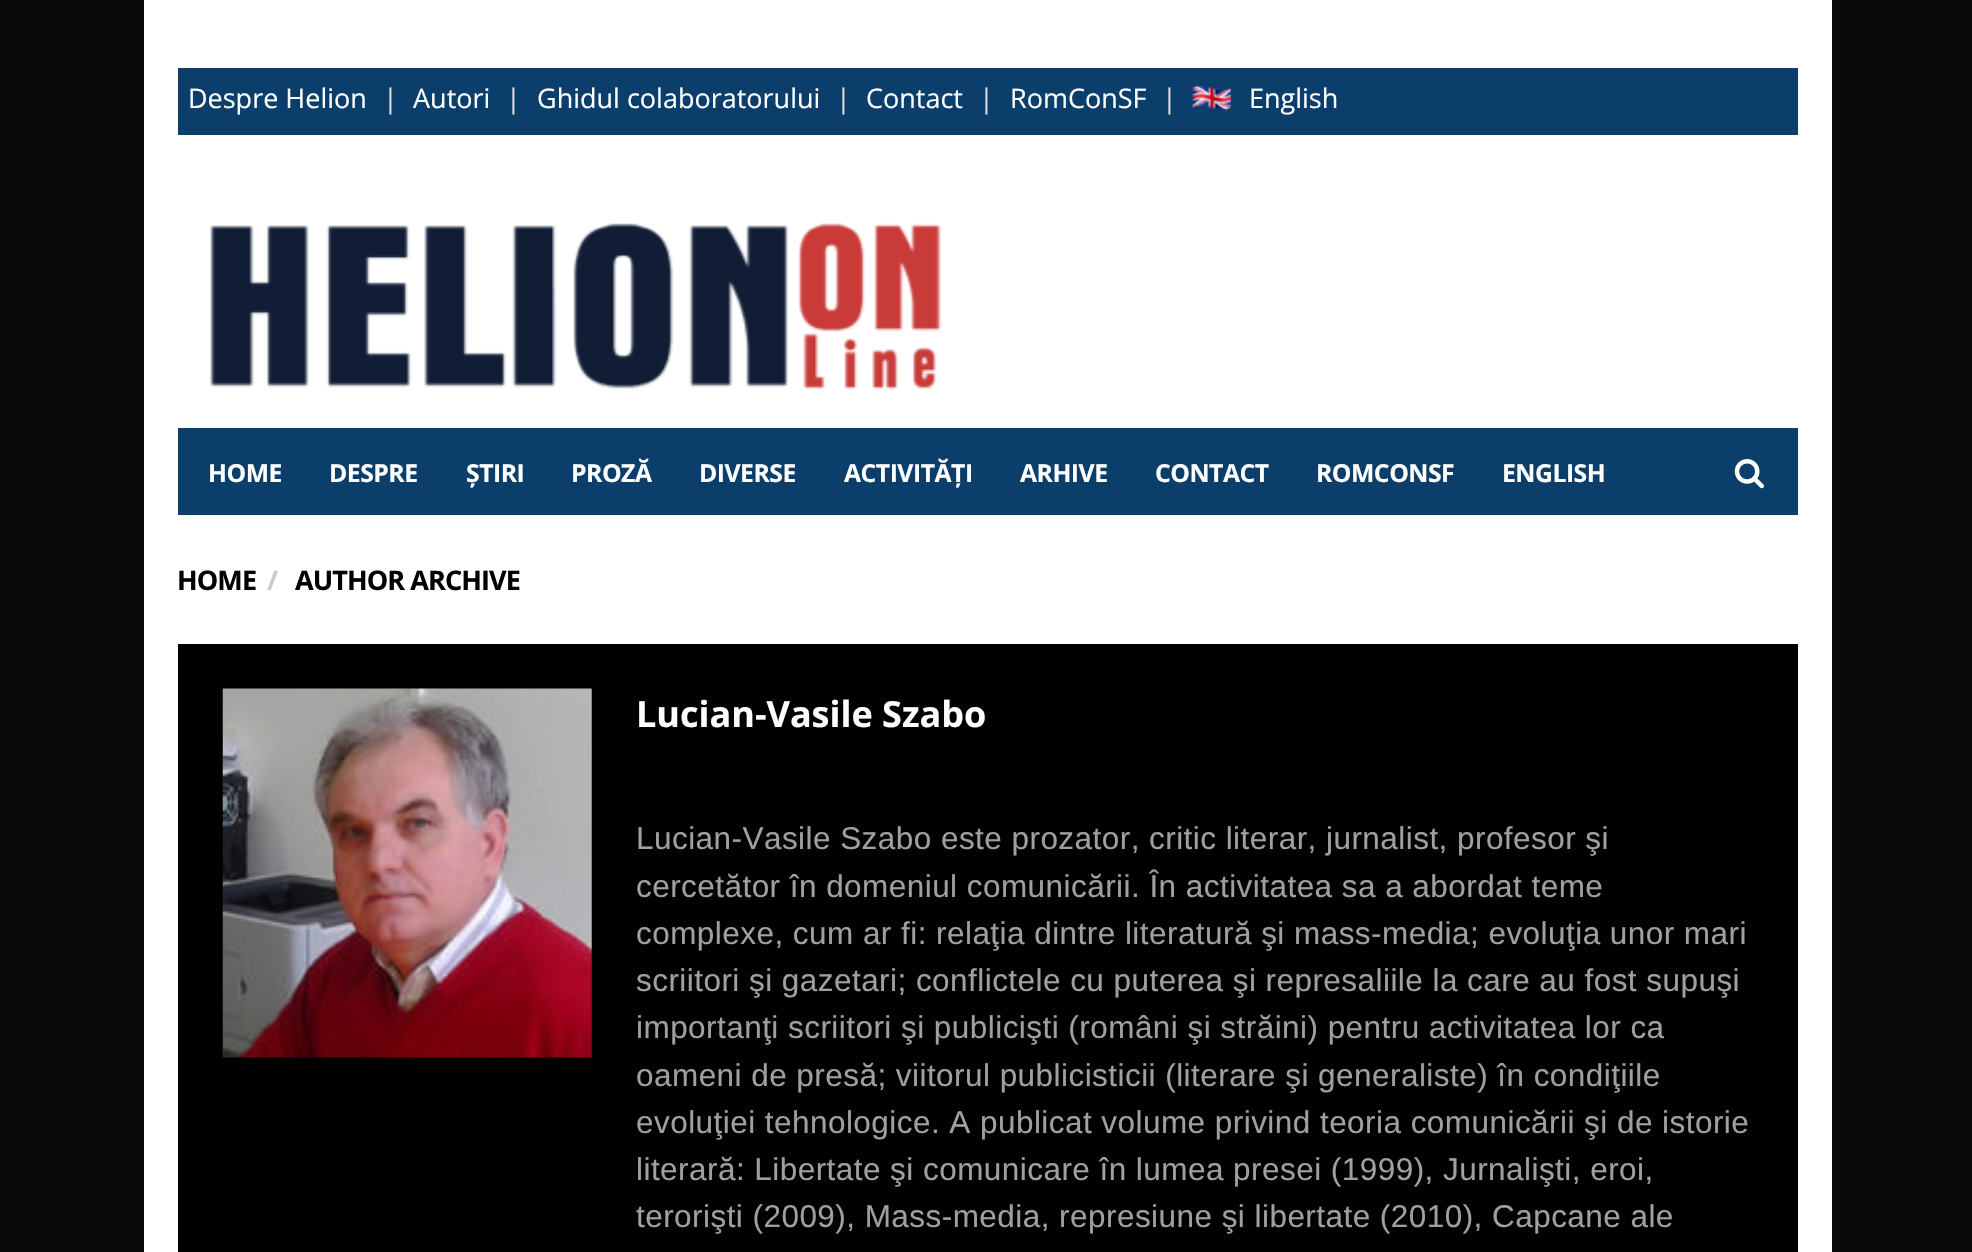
#include "include/core/SkBlurTypes.h"
#include "include/core/SkCanvas.h"
#include "include/core/SkData.h"
#include "include/core/SkFont.h"
#include "include/core/SkFontMgr.h"
#include "include/core/SkImage.h"
#include "include/core/SkMaskFilter.h"
#include "include/core/SkPaint.h"
#include "include/core/SkPathBuilder.h"
#include "include/core/SkTextBlob.h"
#include "include/effects/SkDashPathEffect.h"
#include "include/effects/SkGradientShader.h"
#include "include/utils/SkParsePath.h"

extern sk_sp<SkFontMgr> fontMgr;

void draw(SkCanvas* canvas) {
  SkPaint p;
  p.setAntiAlias(true);
  auto spacedText = [&](const char* s, float x, float y, const SkFont& font, const SkPaint& ink, float letter, float word) {
    std::vector<SkGlyphID> glyphs(font.countText(s, strlen(s), SkTextEncoding::kUTF8));
    std::vector<float> xs(glyphs.size());
    font.textToGlyphs(s, strlen(s), SkTextEncoding::kUTF8, glyphs);
    font.getXPos(glyphs, xs, x);
    float extra = 0;
    for (size_t i = 0; i < glyphs.size(); i++) {
      xs[i] += extra;
      extra += letter + word * (glyphs[i] == font.unicharToGlyph(' '));
    }
    canvas->drawTextBlob(SkTextBlob::MakeFromPosHGlyphs(glyphs, xs, y, font), 0, 0, ink);
  };
  canvas->clear(SkColorSetRGB(10, 10, 10));
  p.setColor(SK_ColorWHITE);
  canvas->drawRect(SkRect::MakeLTRB(144, 0, 1832, 1252), p);
  p.setColor(SkColorSetRGB(11, 62, 107));
  canvas->drawRect(SkRect::MakeLTRB(178, 68, 1798, 135), p);
  canvas->drawImageRect(SkImages::DeferredFromEncodedData(SkData::MakeFromFileName("images/1.png")), SkRect::MakeLTRB(1192, 85, 1231, 111), SkSamplingOptions());
  canvas->drawImageRect(SkImages::DeferredFromEncodedData(SkData::MakeFromFileName("images/2.png")), SkRect::MakeLTRB(210, 223, 942, 390), SkSamplingOptions());
  canvas->drawRect(SkRect::MakeLTRB(178, 428, 1798, 515), p);
  canvas->drawImageRect(SkImages::DeferredFromEncodedData(SkData::MakeFromFileName("images/3.png")), SkRect::MakeLTRB(1734, 459, 1764, 489), SkSamplingOptions());
  p.setColor(SkColorSetRGB(1, 1, 1));
  canvas->drawRect(SkRect::MakeLTRB(178, 644, 1798, 1252), p);
  canvas->drawImageRect(SkImages::DeferredFromEncodedData(SkData::MakeFromFileName("images/4.png")), SkRect::MakeLTRB(222, 688, 592, 1058), SkSamplingOptions());
  SkFont font1(fontMgr->matchFamilyStyle("Open Sans", SkFontStyle::Normal()), 27);
  font1.setSubpixel(true);
  p.setColor(SK_ColorWHITE);
  canvas->drawString("Despre Helion", 188, 108, font1, p);
  p.setColor(SkColorSetRGB(221, 221, 221));
  canvas->drawString("|", 383, 108, font1, p);
  p.setColor(SK_ColorWHITE);
  canvas->drawString("Autori", 413, 108, font1, p);
  p.setColor(SkColorSetRGB(221, 221, 221));
  canvas->drawString("|", 506, 108, font1, p);
  p.setColor(SK_ColorWHITE);
  canvas->drawString("Ghidul colaboratorului", 537, 108, font1, p);
  p.setColor(SkColorSetRGB(221, 221, 221));
  canvas->drawString("|", 836, 108, font1, p);
  p.setColor(SK_ColorWHITE);
  canvas->drawString("Contact", 866, 108, font1, p);
  p.setColor(SkColorSetRGB(221, 221, 221));
  canvas->drawString("|", 979, 108, font1, p);
  p.setColor(SK_ColorWHITE);
  canvas->drawString("RomConSF", 1010, 108, font1, p);
  p.setColor(SkColorSetRGB(221, 221, 221));
  canvas->drawString("|", 1162, 108, font1, p);
  p.setColor(SK_ColorWHITE);
  canvas->drawString("English", 1249, 108, font1, p);
  SkFont font2(fontMgr->matchFamilyStyle("Open Sans", SkFontStyle::Bold()), 24.75f);
  font2.setSubpixel(true);
  spacedText("HOME", 208, 482, font2, p, -0.5f, 0);
  spacedText("DESPRE", 329, 482, font2, p, -0.5f, 0);
  spacedText("ȘTIRI", 466, 482, font2, p, -0.5f, 0);
  spacedText("PROZĂ", 571, 482, font2, p, -0.5f, 0);
  spacedText("DIVERSE", 699, 482, font2, p, -0.5f, 0);
  spacedText("ACTIVITĂȚI", 844, 482, font2, p, -0.5f, 0);
  spacedText("ARHIVE", 1020, 482, font2, p, -0.5f, 0);
  spacedText("CONTACT", 1155, 482, font2, p, -0.5f, 0);
  spacedText("ROMCONSF", 1316, 482, font2, p, -0.5f, 0);
  spacedText("ENGLISH", 1502, 482, font2, p, -0.5f, 0);
  SkFont font3(fontMgr->matchFamilyStyle("Open Sans", SkFontStyle::Bold()), 27);
  font3.setSubpixel(true);
  p.setColor(SkColorSetRGB(1, 1, 1));
  spacedText("HOME", 177, 590, font3, p, -0.9f, 0);
  p.setColor(SkColorSetRGB(204, 204, 204));
  spacedText("/", 267, 590, font3, p, -0.9f, 0);
  p.setColor(SkColorSetRGB(1, 1, 1));
  spacedText("AUTHOR ARCHIVE", 295, 590, font3, p, -0.9f, 0);
  SkFont font4(fontMgr->matchFamilyStyle("Open Sans", SkFontStyle::Bold()), 36);
  font4.setSubpixel(true);
  p.setColor(SK_ColorWHITE);
  canvas->drawString("Lucian-Vasile Szabo", 636, 727, font4, p);
  SkFont font5(fontMgr->matchFamilyStyle("Liberation Sans", SkFontStyle::Normal()), 31.5f);
  font5.setSubpixel(true);
  p.setColor(SkColorSetRGB(160, 160, 160));
  spacedText("Lucian-Vasile Szabo este prozator, critic literar, jurnalist, profesor şi", 636, 849, font5, p, 0.45f, 0);
  spacedText("cercetător în domeniul comunicării. În activitatea sa a abordat teme", 636, 897, font5, p, 0.45f, 0);
  spacedText("complexe, cum ar fi: relaţia dintre literatură şi mass-media; evoluţia unor mari", 636, 944, font5, p, 0.45f, 0);
  spacedText("scriitori şi gazetari; conflictele cu puterea şi represaliile la care au fost supuşi", 636, 991, font5, p, 0.45f, 0);
  spacedText("importanţi scriitori şi publicişti (români şi străini) pentru activitatea lor ca", 636, 1038, font5, p, 0.45f, 0);
  spacedText("oameni de presă; viitorul publicisticii (literare şi generaliste) în condiţiile", 636, 1086, font5, p, 0.45f, 0);
  spacedText("evoluţiei tehnologice. A publicat volume privind teoria comunicării şi de istorie", 636, 1133, font5, p, 0.45f, 0);
  spacedText("literară: Libertate şi comunicare în lumea presei (1999), Jurnalişti, eroi,", 636, 1180, font5, p, 0.45f, 0);
  spacedText("terorişti (2009), Mass-media, represiune şi libertate (2010), Capcane ale", 636, 1227, font5, p, 0.45f, 0);
}
